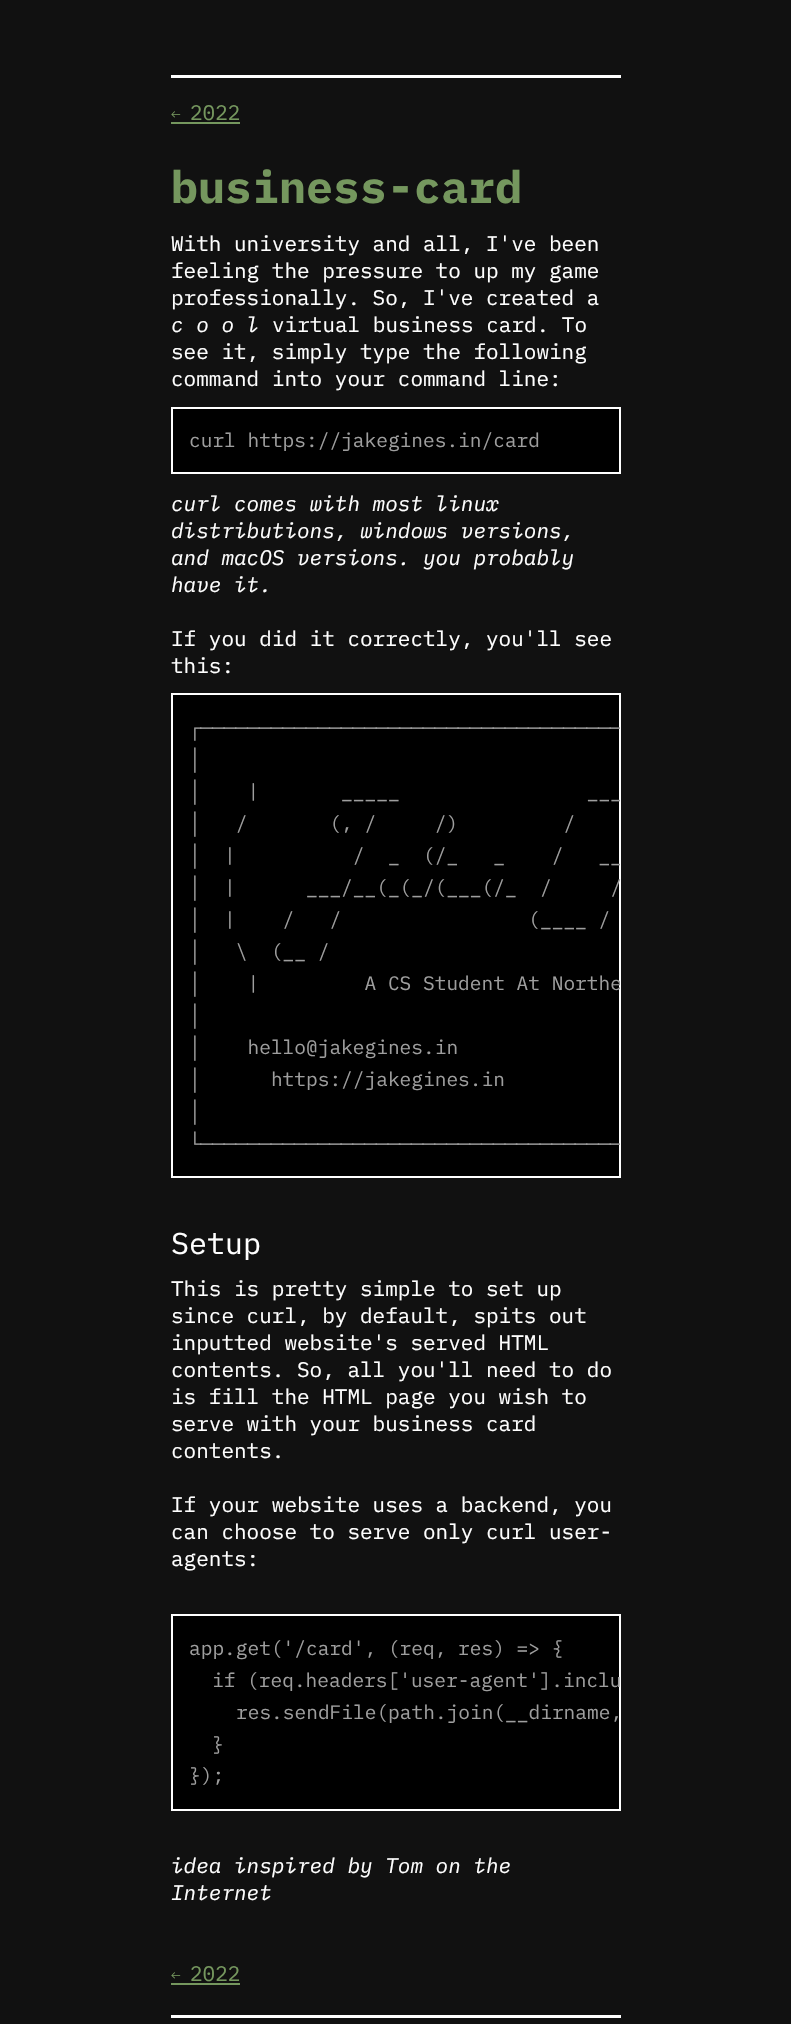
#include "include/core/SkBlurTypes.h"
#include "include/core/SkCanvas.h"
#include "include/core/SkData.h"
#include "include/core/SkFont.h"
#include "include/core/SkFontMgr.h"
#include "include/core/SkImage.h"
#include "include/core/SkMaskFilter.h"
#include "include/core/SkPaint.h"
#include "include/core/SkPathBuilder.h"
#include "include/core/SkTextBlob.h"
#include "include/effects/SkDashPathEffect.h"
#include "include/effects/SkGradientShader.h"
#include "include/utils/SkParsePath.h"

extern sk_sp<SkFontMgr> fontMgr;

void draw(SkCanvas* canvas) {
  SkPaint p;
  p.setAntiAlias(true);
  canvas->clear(SkColorSetRGB(17, 17, 17));
  p.setColor(SK_ColorWHITE);
  canvas->drawRect(SkRect::MakeLTRB(171, 75, 621, 78), p);
  canvas->drawRect(SkRect::MakeLTRB(171, 2015, 621, 2018), p);
  p.setColor(SkColorSetRGB(117, 151, 94));
  canvas->drawRect(SkRect::MakeLTRB(171, 122, 240, 124), p);
  p.setColor(SK_ColorBLACK);
  canvas->drawRect(SkRect::MakeLTRB(172, 408, 620, 473), p);
  p.setStyle(SkPaint::kStroke_Style);
  p.setStrokeWidth(2);
  p.setColor(SK_ColorWHITE);
  canvas->drawRect(SkRect::MakeLTRB(172, 408, 620, 473), p);
  p.setStyle(SkPaint::kFill_Style);
  p.setColor(SK_ColorBLACK);
  canvas->drawRect(SkRect::MakeLTRB(172, 694, 620, 1177), p);
  p.setStyle(SkPaint::kStroke_Style);
  p.setColor(SK_ColorWHITE);
  canvas->drawRect(SkRect::MakeLTRB(172, 694, 620, 1177), p);
  p.setStyle(SkPaint::kFill_Style);
  p.setColor(SK_ColorBLACK);
  canvas->drawRect(SkRect::MakeLTRB(172, 1615, 620, 1810), p);
  p.setStyle(SkPaint::kStroke_Style);
  p.setColor(SK_ColorWHITE);
  canvas->drawRect(SkRect::MakeLTRB(172, 1615, 620, 1810), p);
  p.setStyle(SkPaint::kFill_Style);
  p.setColor(SkColorSetRGB(117, 151, 94));
  canvas->drawRect(SkRect::MakeLTRB(171, 1983, 240, 1985), p);
  SkFont font1(fontMgr->matchFamilyStyle("IBM Plex Mono", SkFontStyle(300, SkFontStyle::kNormal_Width, SkFontStyle::kUpright_Slant)), 16);
  font1.setSubpixel(true);
  canvas->drawString("←", 171, 120, font1, p);
  SkFont font2(fontMgr->matchFamilyStyle("IBM Plex Mono", SkFontStyle::Normal()), 21);
  font2.setSubpixel(true);
  canvas->drawString("2022", 190, 120, font2, p);
  SkFont font3(fontMgr->matchFamilyStyle("IBM Plex Mono", SkFontStyle::Bold()), 45);
  font3.setSubpixel(true);
  canvas->drawString("business-card", 171, 203, font3, p);
  p.setColor(SK_ColorWHITE);
  canvas->drawString("With university and all, I've been", 171, 251, font2, p);
  canvas->drawString("feeling the pressure to up my game", 171, 278, font2, p);
  canvas->drawString("professionally. So, I've created a", 171, 305, font2, p);
  SkFont font4(fontMgr->matchFamilyStyle("IBM Plex Mono", SkFontStyle::Italic()), 21);
  font4.setSubpixel(true);
  canvas->drawString("c o o l", 171, 332, font4, p);
  canvas->drawString("virtual business card. To", 272, 332, font2, p);
  canvas->drawString("see it, simply type the following", 171, 359, font2, p);
  canvas->drawString("command into your command line:", 171, 386, font2, p);
  SkFont font5(fontMgr->matchFamilyStyle("IBM Plex Mono", SkFontStyle::Normal()), 19.5f);
  font5.setSubpixel(true);
  p.setColor(SkColorSetRGB(158, 158, 158));
  canvas->drawString("curl https://jakegines.in/card", 189, 447, font5, p);
  p.setColor(SK_ColorWHITE);
  canvas->drawString("curl comes with most linux", 171, 511, font4, p);
  canvas->drawString("distributions, windows versions,", 171, 538, font4, p);
  canvas->drawString("and macOS versions. you probably", 171, 565, font4, p);
  canvas->drawString("have it.", 171, 592, font4, p);
  canvas->drawString("If you did it correctly, you'll see", 171, 646, font2, p);
  canvas->drawString("this:", 171, 673, font2, p);
  canvas->save();
  canvas->clipRect(SkRect::MakeLTRB(173, 695, 620, 1176));
  p.setColor(SkColorSetRGB(158, 158, 158));
  canvas->drawString("┌────────────────────────────────────", 189, 734, font5, p);
  canvas->restore();
  canvas->drawString("│", 189, 766, font5, p);
  canvas->save();
  canvas->clipRect(SkRect::MakeLTRB(173, 695, 620, 1176));
  canvas->drawString("│    |       _____                ___", 189, 798, font5, p);
  canvas->restore();
  canvas->drawString("│   /       (, /     /)         /", 189, 830, font5, p);
  canvas->save();
  canvas->clipRect(SkRect::MakeLTRB(173, 695, 620, 1176));
  canvas->drawString("│  |          /  _  (/_   _    /   __", 189, 862, font5, p);
  canvas->restore();
  canvas->drawString("│  |      ___/__(_(_/(___(/_  /     /", 189, 894, font5, p);
  canvas->drawString("│  |    /   /                (____ /", 189, 926, font5, p);
  canvas->drawString("│   \\  (__ /", 189, 958, font5, p);
  canvas->save();
  canvas->clipRect(SkRect::MakeLTRB(173, 695, 620, 1176));
  canvas->drawString("│    |         A CS Student At Northe", 189, 990, font5, p);
  canvas->restore();
  canvas->drawString("│", 189, 1022, font5, p);
  canvas->drawString("│    hello@jakegines.in", 189, 1054, font5, p);
  canvas->drawString("│      https://jakegines.in", 189, 1086, font5, p);
  canvas->drawString("│", 189, 1118, font5, p);
  canvas->save();
  canvas->clipRect(SkRect::MakeLTRB(173, 695, 620, 1176));
  canvas->drawString("└────────────────────────────────────", 189, 1150, font5, p);
  canvas->restore();
  SkFont font6(fontMgr->matchFamilyStyle("IBM Plex Mono", SkFontStyle::Normal()), 30);
  font6.setSubpixel(true);
  p.setColor(SK_ColorWHITE);
  canvas->drawString("Setup", 171, 1254, font6, p);
  canvas->drawString("This is pretty simple to set up", 171, 1296, font2, p);
  canvas->drawString("since curl, by default, spits out", 171, 1323, font2, p);
  canvas->drawString("inputted website's served HTML", 171, 1350, font2, p);
  canvas->drawString("contents. So, all you'll need to do", 171, 1377, font2, p);
  canvas->drawString("is fill the HTML page you wish to", 171, 1404, font2, p);
  canvas->drawString("serve with your business card", 171, 1431, font2, p);
  canvas->drawString("contents.", 171, 1458, font2, p);
  canvas->drawString("If your website uses a backend, you", 171, 1512, font2, p);
  canvas->drawString("can choose to serve only curl user-", 171, 1539, font2, p);
  canvas->drawString("agents:", 171, 1566, font2, p);
  p.setColor(SkColorSetRGB(158, 158, 158));
  canvas->drawString("app.get('/card', (req, res) => {", 189, 1655, font5, p);
  canvas->drawString("if (req.headers['user-agent'].inclu", 212, 1687, font5, p);
  canvas->drawString("res.sendFile(path.join(__dirname,", 236, 1719, font5, p);
  canvas->drawString("}", 212, 1751, font5, p);
  canvas->drawString("});", 189, 1782, font5, p);
  p.setColor(SK_ColorWHITE);
  canvas->drawString("idea inspired by Tom on the", 171, 1873, font4, p);
  canvas->drawString("Internet", 171, 1900, font4, p);
  p.setColor(SkColorSetRGB(117, 151, 94));
  canvas->drawString("←", 171, 1981, font1, p);
  canvas->drawString("2022", 190, 1981, font2, p);
}
